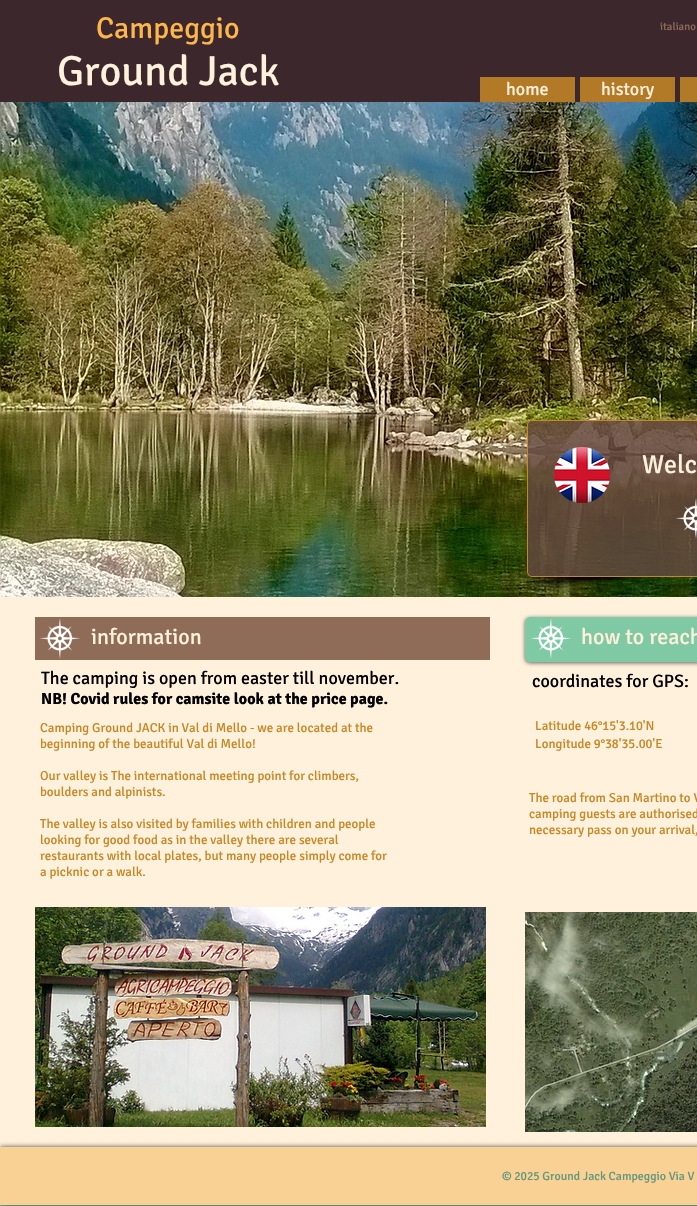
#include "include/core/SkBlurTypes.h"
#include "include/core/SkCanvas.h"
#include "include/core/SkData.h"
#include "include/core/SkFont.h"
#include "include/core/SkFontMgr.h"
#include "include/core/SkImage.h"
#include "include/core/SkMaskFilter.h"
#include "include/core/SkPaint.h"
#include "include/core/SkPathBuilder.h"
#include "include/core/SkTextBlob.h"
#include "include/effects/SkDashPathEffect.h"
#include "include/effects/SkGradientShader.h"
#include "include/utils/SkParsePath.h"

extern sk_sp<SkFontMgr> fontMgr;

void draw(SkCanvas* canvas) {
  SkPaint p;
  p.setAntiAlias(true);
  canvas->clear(SkColorSetRGB(128, 201, 165));
  p.setColor(SkColorSetRGB(59, 39, 44));
  canvas->drawRect(SkRect::MakeLTRB(0, 0, 697, 102), p);
  p.setColor(SkColorSetRGB(178, 121, 38));
  canvas->drawRect(SkRect::MakeLTRB(480, 77, 575, 102), p);
  canvas->drawRect(SkRect::MakeLTRB(580, 77, 675, 102), p);
  canvas->drawRect(SkRect::MakeLTRB(680, 77, 697, 102), p);
  canvas->drawImageRect(SkImages::DeferredFromEncodedData(SkData::MakeFromFileName("images/1.png")), SkRect::MakeLTRB(0, 102, 697, 597), SkSamplingOptions());
  p.setColor(SkColorSetARGB(214, 98, 72, 61));
  canvas->drawRoundRect(SkRect::MakeLTRB(527.5f, 420.5f, 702.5f, 576.5f), 4.5f, 4.5f, p);
  p.setStyle(SkPaint::kStroke_Style);
  p.setStrokeWidth(1);
  p.setColor(SkColorSetRGB(199, 135, 37));
  canvas->drawRoundRect(SkRect::MakeLTRB(527.5f, 420.5f, 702.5f, 576.5f), 4.5f, 4.5f, p);
  canvas->drawImageRect(SkImages::DeferredFromEncodedData(SkData::MakeFromFileName("images/2.png")), SkRect::MakeLTRB(554, 447, 610, 503), SkSamplingOptions());
  canvas->drawImageRect(SkImages::DeferredFromEncodedData(SkData::MakeFromFileName("images/3.png")), SkRect::MakeLTRB(675, 498, 697, 539), SkSamplingOptions());
  canvas->drawImageRect(SkImages::DeferredFromEncodedData(SkData::MakeFromFileName("images/4.png")), SkRect::MakeLTRB(522, 577, 655, 593), SkSamplingOptions());
  p.setStyle(SkPaint::kFill_Style);
  p.setColor(SkColorSetRGB(255, 241, 219));
  canvas->drawRect(SkRect::MakeLTRB(0, 597, 697, 1147), p);
  p.setColor(SkColorSetRGB(142, 108, 87));
  canvas->drawRect(SkRect::MakeLTRB(35, 617, 490, 660), p);
  canvas->drawImageRect(SkImages::DeferredFromEncodedData(SkData::MakeFromFileName("images/5.png")), SkRect::MakeLTRB(39, 618, 80, 659), SkSamplingOptions());
  p.setColor(SkColorSetARGB(153, 0, 0, 0));
  p.setMaskFilter(SkMaskFilter::MakeBlur(kNormal_SkBlurStyle, 2));
  canvas->drawRoundRect(SkRect::MakeLTRB(525, 618, 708, 663), 5, 5, p);
  p.setMaskFilter(nullptr);
  p.setColor(SkColorSetRGB(128, 201, 165));
  canvas->drawRoundRect(SkRect::MakeLTRB(525.5f, 617.5f, 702.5f, 661.5f), 4.5f, 4.5f, p);
  p.setStyle(SkPaint::kStroke_Style);
  canvas->drawRoundRect(SkRect::MakeLTRB(525.5f, 617.5f, 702.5f, 661.5f), 4.5f, 4.5f, p);
  canvas->drawImageRect(SkImages::DeferredFromEncodedData(SkData::MakeFromFileName("images/6.png")), SkRect::MakeLTRB(530, 618, 571, 659), SkSamplingOptions());
  canvas->drawImageRect(SkImages::DeferredFromEncodedData(SkData::MakeFromFileName("images/7.png")), SkRect::MakeLTRB(35, 907, 486, 1127), SkSamplingOptions());
  canvas->drawImageRect(SkImages::DeferredFromEncodedData(SkData::MakeFromFileName("images/8.png")), SkRect::MakeLTRB(525, 912, 697, 1132), SkSamplingOptions());
  p.setStyle(SkPaint::kFill_Style);
  p.setColor(SkColorSetARGB(179, 0, 0, 0));
  p.setMaskFilter(SkMaskFilter::MakeBlur(kNormal_SkBlurStyle, 2.5f));
  canvas->drawRect(SkRect::MakeLTRB(0, 1147, 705, 1205), p);
  p.setMaskFilter(nullptr);
  p.setColor(SkColorSetRGB(249, 209, 149));
  canvas->drawRect(SkRect::MakeLTRB(0, 1147, 697, 1205), p);
  SkFont font1(fontMgr->matchFamilyStyle("Signika", SkFontStyle::Normal()), 30);
  font1.setSubpixel(true);
  p.setColor(SkColorSetRGB(252, 182, 76));
  canvas->drawString("Campeggio", 96, 38, font1, p);
  SkFont font2(fontMgr->matchFamilyStyle("Signika", SkFontStyle::Normal()), 42);
  font2.setSubpixel(true);
  p.setColor(SkColorSetRGB(255, 241, 219));
  canvas->drawString("Ground Jack", 57, 85, font2, p);
  SkFont font3(fontMgr->matchFamilyStyle("Signika", SkFontStyle::Normal()), 11);
  font3.setSubpixel(true);
  p.setColor(SkColorSetRGB(142, 108, 87));
  canvas->drawString("italiano", 660, 30, font3, p);
  SkFont font4(fontMgr->matchFamilyStyle("Signika", SkFontStyle::Normal()), 18);
  font4.setSubpixel(true);
  p.setColor(SkColorSetRGB(255, 241, 219));
  canvas->drawString("home", 506, 95, font4, p);
  canvas->drawString("history", 601, 95, font4, p);
  SkFont font5(fontMgr->matchFamilyStyle("Signika", SkFontStyle::Normal()), 26);
  font5.setSubpixel(true);
  canvas->drawString("Welc", 642, 473, font5, p);
  SkFont font6(fontMgr->matchFamilyStyle("Signika", SkFontStyle::Normal()), 22);
  font6.setSubpixel(true);
  canvas->drawString("information", 91, 644, font6, p);
  canvas->drawString("how to reach", 581, 644, font6, p);
  p.setColor(SK_ColorBLACK);
  canvas->drawString("The camping is open from easter till november.", 41, 684, font4, p);
  SkFont font7(fontMgr->matchFamilyStyle("Signika", SkFontStyle::Bold()), 16);
  font7.setSubpixel(true);
  canvas->drawString("NB! Covid rules for camsite look at the price page.", 41, 704, font7, p);
  canvas->drawString("coordinates for GPS:", 532, 687, font4, p);
  SkFont font8(fontMgr->matchFamilyStyle("Signika", SkFontStyle::Normal()), 13);
  font8.setSubpixel(true);
  p.setColor(SkColorSetRGB(199, 135, 37));
  canvas->drawString("Camping Ground JACK in Val di Mello - we are located at the", 40, 732, font8, p);
  canvas->drawString("beginning of the beautiful Val di Mello!", 40, 748, font8, p);
  canvas->drawString("Our valley is The international meeting point for climbers,", 40, 780, font8, p);
  canvas->drawString("boulders and alpinists.", 40, 796, font8, p);
  canvas->drawString("The valley is also visited by families with children and people", 40, 828, font8, p);
  canvas->drawString("looking for good food as in the valley there are several", 40, 844, font8, p);
  canvas->drawString("restaurants with local plates, but many people simply come for", 40, 860, font8, p);
  canvas->drawString("a picknic or a walk.", 40, 876, font8, p);
  canvas->drawString("Latitude 46°15'3.10'N", 535, 730, font8, p);
  canvas->drawString("Longitude 9°38'35.00'E", 535, 748, font8, p);
  canvas->drawString("The road from San Martino to V", 529, 802, font8, p);
  canvas->drawString("camping guests are authorised", 529, 818, font8, p);
  canvas->drawString("necessary pass on your arrival,", 529, 834, font8, p);
  SkFont font9(fontMgr->matchFamilyStyle("Signika", SkFontStyle::Normal()), 12);
  font9.setSubpixel(true);
  p.setColor(SkColorSetRGB(96, 151, 123));
  canvas->drawString("© 2025 Ground Jack Campeggio Via V", 502, 1180, font9, p);
}
